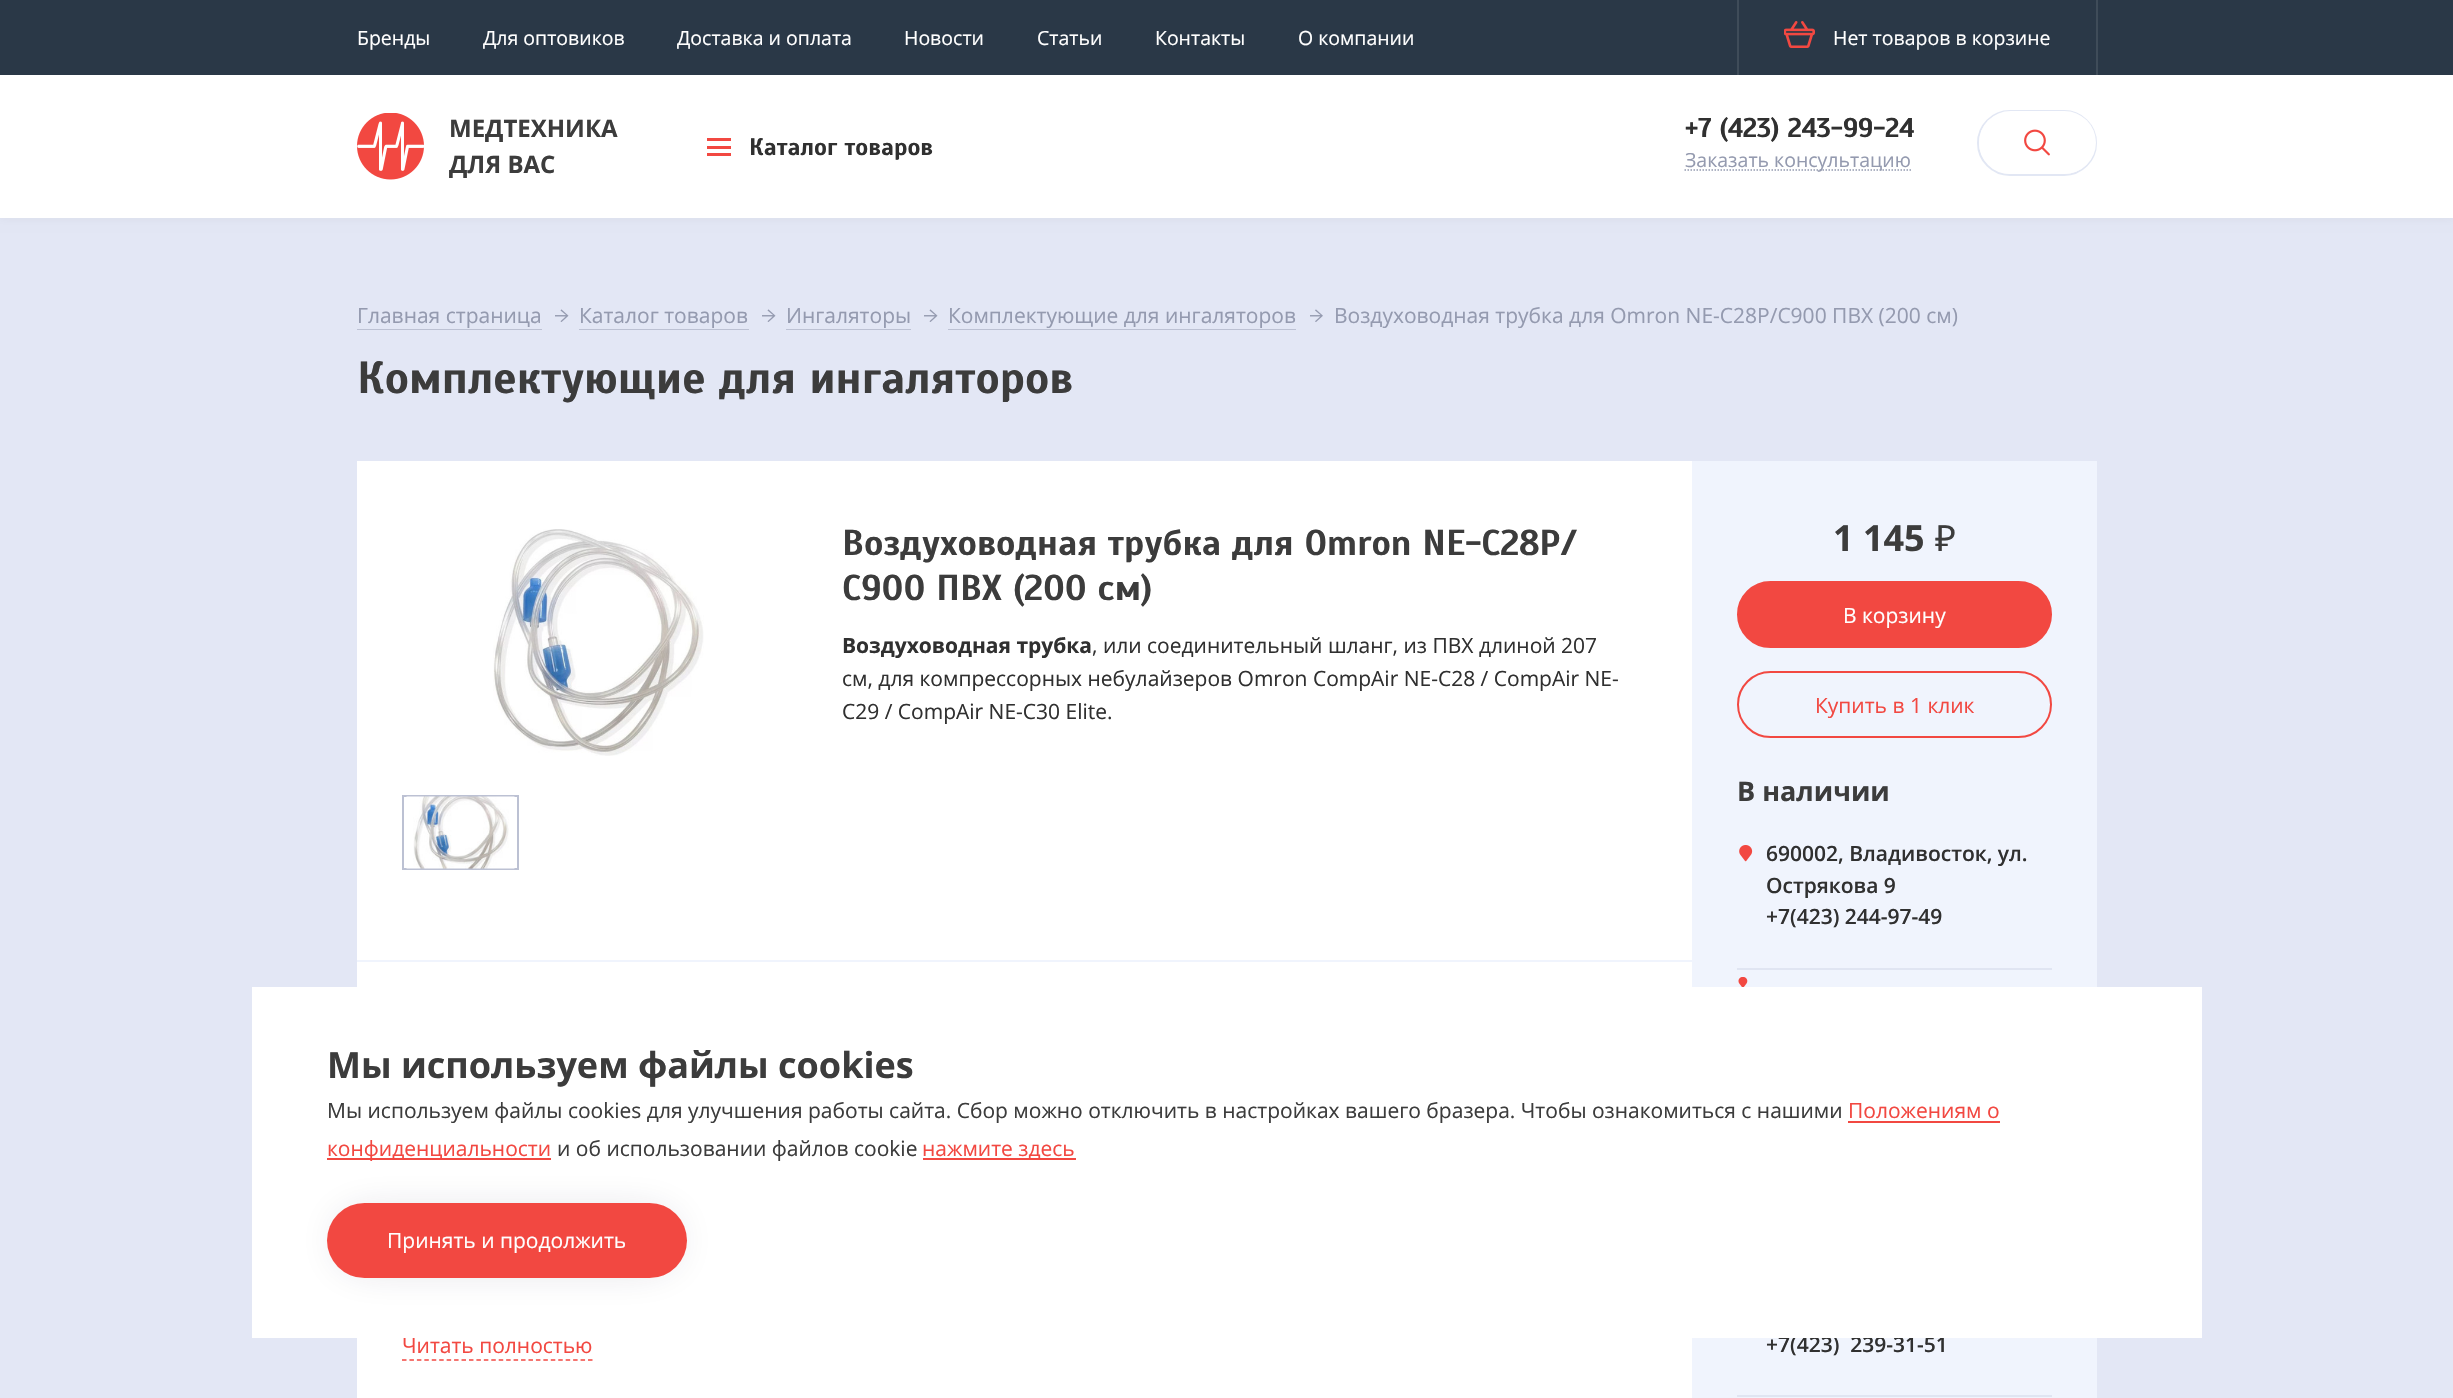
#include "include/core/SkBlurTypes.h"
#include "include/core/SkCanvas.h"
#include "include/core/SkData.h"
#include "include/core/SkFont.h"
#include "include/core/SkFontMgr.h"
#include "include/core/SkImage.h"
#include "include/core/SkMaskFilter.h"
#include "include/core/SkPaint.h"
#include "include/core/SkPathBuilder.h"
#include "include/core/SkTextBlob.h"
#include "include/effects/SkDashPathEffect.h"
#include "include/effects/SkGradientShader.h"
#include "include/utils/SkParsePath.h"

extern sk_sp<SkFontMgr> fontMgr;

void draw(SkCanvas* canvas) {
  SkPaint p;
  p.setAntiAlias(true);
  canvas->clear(SkColorSetRGB(227, 231, 245));
  p.setColor(SkColorSetARGB(13, 0, 0, 0));
  p.setMaskFilter(SkMaskFilter::MakeBlur(kNormal_SkBlurStyle, 5));
  canvas->drawRect(SkRect::MakeLTRB(0, 0, 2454, 218), p);
  p.setMaskFilter(nullptr);
  p.setColor(SkColorSetRGB(42, 56, 71));
  canvas->drawRect(SkRect::MakeLTRB(0, 0, 2453, 75), p);
  p.setColor(SkColorSetRGB(63, 76, 89));
  canvas->drawRect(SkRect::MakeLTRB(2096, 0, 2098, 75), p);
  canvas->drawRect(SkRect::MakeLTRB(1737, 0, 1739, 75), p);
  canvas->drawImageRect(SkImages::DeferredFromEncodedData(SkData::MakeFromFileName("images/1.png")), SkRect::MakeLTRB(1784, 21, 1815, 48), SkSamplingOptions());
  p.setColor(SK_ColorWHITE);
  canvas->drawRect(SkRect::MakeLTRB(0, 75, 2453, 218), p);
  canvas->drawImageRect(SkImages::DeferredFromEncodedData(SkData::MakeFromFileName("images/2.png")), SkRect::MakeLTRB(357, 113, 424, 180), SkSamplingOptions());
  p.setColor(SkColorSetRGB(242, 72, 65));
  canvas->drawRect(SkRect::MakeLTRB(707, 138, 731, 141), p);
  canvas->drawRect(SkRect::MakeLTRB(707, 146, 731, 149), p);
  canvas->drawRect(SkRect::MakeLTRB(707, 153, 731, 156), p);
  p.setStyle(SkPaint::kStroke_Style);
  p.setStrokeWidth(1.5f);
  p.setColor(SkColorSetRGB(148, 154, 175));
  p.setPathEffect(SkDashPathEffect::Make({{1.5f, 1.5f}}, 0));
  canvas->drawPath(SkPathBuilder().moveTo(1684.5f, 170).lineTo(1911, 170).detach(), p);
  p.setPathEffect(nullptr);
  p.setStrokeWidth(2);
  p.setColor(SkColorSetRGB(226, 231, 244));
  canvas->drawRoundRect(SkRect::MakeLTRB(1978, 111, 2096, 175), 32, 32, p);
  p.setStyle(SkPaint::kFill_Style);
  p.setColor(SK_ColorWHITE);
  canvas->drawRoundRect(SkRect::MakeLTRB(1979, 111, 2096, 174), 31.5f, 31.5f, p);
  canvas->drawImageRect(SkImages::DeferredFromEncodedData(SkData::MakeFromFileName("images/3.png")), SkRect::MakeLTRB(2024, 129, 2050, 156), SkSamplingOptions());
  p.setColor(SkColorSetRGB(188, 193, 211));
  canvas->drawRect(SkRect::MakeLTRB(357, 329, 542, 330), p);
  canvas->drawImageRect(SkImages::DeferredFromEncodedData(SkData::MakeFromFileName("images/4.png")), SkRect::MakeLTRB(555, 309, 569, 322), SkSamplingOptions());
  canvas->drawRect(SkRect::MakeLTRB(579, 329, 749, 330), p);
  canvas->drawImageRect(SkImages::DeferredFromEncodedData(SkData::MakeFromFileName("images/4.png")), SkRect::MakeLTRB(762, 309, 776, 322), SkSamplingOptions());
  canvas->drawRect(SkRect::MakeLTRB(786, 329, 911, 330), p);
  canvas->drawImageRect(SkImages::DeferredFromEncodedData(SkData::MakeFromFileName("images/4.png")), SkRect::MakeLTRB(924, 309, 938, 322), SkSamplingOptions());
  canvas->drawRect(SkRect::MakeLTRB(948, 329, 1296, 330), p);
  canvas->drawImageRect(SkImages::DeferredFromEncodedData(SkData::MakeFromFileName("images/5.png")), SkRect::MakeLTRB(1310, 309, 1323, 322), SkSamplingOptions());
  p.setColor(SK_ColorWHITE);
  canvas->drawRect(SkRect::MakeLTRB(357, 461, 1692, 1398), p);
  canvas->drawImageRect(SkImages::DeferredFromEncodedData(SkData::MakeFromFileName("images/6.png")), SkRect::MakeLTRB(493, 529, 704, 756), SkSamplingOptions());
  p.setStyle(SkPaint::kStroke_Style);
  p.setColor(SkColorSetRGB(188, 193, 211));
  canvas->drawRect(SkRect::MakeLTRB(403, 796, 518, 869), p);
  canvas->drawImageRect(SkImages::DeferredFromEncodedData(SkData::MakeFromFileName("images/7.png")), SkRect::MakeLTRB(406, 796, 515, 869), SkSamplingOptions());
  p.setStyle(SkPaint::kFill_Style);
  p.setColor(SkColorSetRGB(240, 244, 253));
  canvas->drawRect(SkRect::MakeLTRB(357, 960, 1692, 962), p);
  p.setStyle(SkPaint::kStroke_Style);
  p.setStrokeWidth(1.5f);
  p.setColor(SkColorSetRGB(242, 72, 65));
  p.setPathEffect(SkDashPathEffect::Make({{4.5f, 2.94f}}, 0));
  canvas->drawPath(SkPathBuilder().moveTo(402, 1360).lineTo(592.5f, 1360).detach(), p);
  p.setPathEffect(nullptr);
  p.setStyle(SkPaint::kFill_Style);
  p.setColor(SkColorSetRGB(240, 244, 253));
  canvas->drawRect(SkRect::MakeLTRB(1692, 461, 2097, 1398), p);
  p.setColor(SkColorSetRGB(242, 72, 65));
  canvas->drawRoundRect(SkRect::MakeLTRB(1738, 582, 2051, 647), 32.5f, 32.5f, p);
  p.setStyle(SkPaint::kStroke_Style);
  p.setStrokeWidth(2);
  canvas->drawRoundRect(SkRect::MakeLTRB(1738, 582, 2051, 647), 32.5f, 32.5f, p);
  canvas->drawRoundRect(SkRect::MakeLTRB(1738, 672, 2051, 737), 32.5f, 32.5f, p);
  p.setStyle(SkPaint::kFill_Style);
  p.setColor(SkColorSetRGB(224, 229, 242));
  canvas->drawRect(SkRect::MakeLTRB(1737, 968, 2052, 970), p);
  canvas->drawImageRect(SkImages::DeferredFromEncodedData(SkData::MakeFromFileName("images/8.png")), SkRect::MakeLTRB(1739, 845, 1753, 862), SkSamplingOptions());
  canvas->drawImageRect(SkImages::DeferredFromEncodedData(SkData::MakeFromFileName("images/9.png")), SkRect::MakeLTRB(1738, 977, 1748, 987), SkSamplingOptions());
  canvas->drawRect(SkRect::MakeLTRB(1737, 1395, 2052, 1397), p);
  SkFont font1(fontMgr->matchFamilyStyle("Open Sans", SkFontStyle::Normal()), 19.5f);
  font1.setSubpixel(true);
  p.setColor(SK_ColorWHITE);
  canvas->drawString("Бренды", 357, 45, font1, p);
  canvas->drawString("Для оптовиков", 483, 45, font1, p);
  canvas->drawString("Доставка и оплата", 677, 45, font1, p);
  canvas->drawString("Новости", 904, 45, font1, p);
  canvas->drawString("Статьи", 1037, 45, font1, p);
  canvas->drawString("Контакты", 1155, 45, font1, p);
  canvas->drawString("О компании", 1298, 45, font1, p);
  canvas->drawString("Нет товаров в корзине", 1833, 45, font1, p);
  SkFont font2(fontMgr->matchFamilyStyle("Open Sans", SkFontStyle::Bold()), 24);
  font2.setSubpixel(true);
  p.setColor(SkColorSetRGB(60, 60, 60));
  canvas->drawString("МЕДТЕХНИКА", 449, 137, font2, p);
  canvas->drawString("ДЛЯ ВАС", 449, 173, font2, p);
  SkFont font3(fontMgr->matchFamilyStyle("Scada", SkFontStyle::Bold()), 24);
  font3.setSubpixel(true);
  p.setColor(SkColorSetRGB(48, 48, 48));
  canvas->drawString("Каталог товаров", 749, 155, font3, p);
  SkFont font4(fontMgr->matchFamilyStyle("Scada", SkFontStyle::Bold()), 27);
  font4.setSubpixel(true);
  canvas->drawString("+7 (423) 243-99-24", 1685, 137, font4, p);
  p.setColor(SkColorSetRGB(148, 154, 175));
  canvas->drawString("Заказать консультацию", 1685, 167, font1, p);
  SkFont font5(fontMgr->matchFamilyStyle("Open Sans", SkFontStyle::Normal()), 21);
  font5.setSubpixel(true);
  canvas->drawString("Главная страница", 357, 323, font5, p);
  canvas->drawString("Каталог товаров", 579, 323, font5, p);
  canvas->drawString("Ингаляторы", 786, 323, font5, p);
  canvas->drawString("Комплектующие для ингаляторов", 948, 323, font5, p);
  canvas->drawString("Воздуховодная трубка для Omron NE-С28Р/С900 ПВХ (200 см)", 1334, 323, font5, p);
  SkFont font6(fontMgr->matchFamilyStyle("Scada", SkFontStyle::Bold()), 45);
  font6.setSubpixel(true);
  p.setColor(SkColorSetRGB(60, 60, 60));
  canvas->drawString("Комплектующие для ингаляторов", 357, 393, font6, p);
  SkFont font7(fontMgr->matchFamilyStyle("Scada", SkFontStyle::Bold()), 36);
  font7.setSubpixel(true);
  canvas->drawString("Воздуховодная трубка для Omron NE-С28Р/", 842, 555, font7, p);
  canvas->drawString("С900 ПВХ (200 см)", 842, 600, font7, p);
  SkFont font8(fontMgr->matchFamilyStyle("Open Sans", SkFontStyle::Bold()), 21);
  font8.setSubpixel(true);
  p.setColor(SkColorSetRGB(48, 48, 48));
  canvas->drawString("Воздуховодная трубка", 842, 653, font8, p);
  canvas->drawString(", или соединительный шланг, из ПВХ длиной 207", 1092, 653, font5, p);
  canvas->drawString("см, для компрессорных небулайзеров Omron CompAir NE-C28 / CompAir NE-", 842, 686, font5, p);
  canvas->drawString("C29 / CompAir NE-C30 Elite.", 842, 719, font5, p);
  p.setColor(SkColorSetRGB(242, 72, 65));
  canvas->drawString("Читать полностью", 402, 1353, font5, p);
  SkFont font9(fontMgr->matchFamilyStyle("Open Sans", SkFontStyle::Bold()), 36);
  font9.setSubpixel(true);
  p.setColor(SkColorSetRGB(60, 60, 60));
  canvas->drawString("1 145", 1833, 551, font9, p);
  SkFont font10(fontMgr->matchFamilyStyle("Noto Sans", SkFontStyle::Normal()), 36);
  font10.setSubpixel(true);
  canvas->drawString("₽", 1935, 551, font10, p);
  p.setColor(SK_ColorWHITE);
  canvas->drawString("В корзину", 1843, 623, font5, p);
  p.setColor(SkColorSetRGB(242, 72, 65));
  canvas->drawString("Купить в 1 клик", 1815, 713, font5, p);
  SkFont font11(fontMgr->matchFamilyStyle("Open Sans", SkFontStyle::Bold()), 27);
  font11.setSubpixel(true);
  p.setColor(SkColorSetRGB(60, 60, 60));
  canvas->drawString("В наличии", 1737, 801, font11, p);
  SkFont font12(fontMgr->matchFamilyStyle("Open Sans", SkFontStyle(600, SkFontStyle::kNormal_Width, SkFontStyle::kUpright_Slant)), 21);
  font12.setSubpixel(true);
  p.setColor(SkColorSetRGB(48, 48, 48));
  canvas->drawString("690002, Владивосток, ул.", 1766, 861, font12, p);
  canvas->drawString("Острякова 9", 1766, 893, font12, p);
  canvas->drawString("+7(423) 244-97-49", 1766, 924, font12, p);
  canvas->drawString("+7(423)  239-31-51", 1766, 1352, font12, p);
  p.setColor(SK_ColorWHITE);
  canvas->drawRect(SkRect::MakeLTRB(252, 987, 2202, 1338), p);
  p.setColor(SkColorSetRGB(60, 60, 60));
  canvas->drawString("Мы используем файлы cookies", 327, 1078, font9, p);
  canvas->drawString("Мы используем файлы cookies для улучшения работы сайта. Сбор можно отключить в настройках вашего бразера. Чтобы ознакомиться с нашими", 327, 1118, font5, p);
  p.setColor(SkColorSetRGB(242, 72, 65));
  canvas->drawString("Положениям о", 1848, 1118, font5, p);
  canvas->drawRect(SkRect::MakeLTRB(1848, 1121, 2000, 1123), p);
  canvas->drawRect(SkRect::MakeLTRB(327, 1158, 551, 1160), p);
  canvas->drawString("конфиденциальности", 327, 1156, font5, p);
  p.setColor(SkColorSetRGB(60, 60, 60));
  canvas->drawString("и об использовании файлов cookie", 557, 1156, font5, p);
  p.setColor(SkColorSetRGB(242, 72, 65));
  canvas->drawRect(SkRect::MakeLTRB(923, 1158, 1076, 1160), p);
  canvas->drawString("нажмите здесь", 922, 1156, font5, p);
  p.setColor(SkColorSetARGB(51, 33, 32, 67));
  p.setMaskFilter(SkMaskFilter::MakeBlur(kNormal_SkBlurStyle, 22.5f));
  canvas->drawRoundRect(SkRect::MakeLTRB(342, 1218, 672, 1263), 22.5f, 22.5f, p);
  p.setMaskFilter(nullptr);
  p.setColor(SkColorSetRGB(242, 72, 65));
  canvas->drawRoundRect(SkRect::MakeLTRB(327, 1203, 687, 1278), 37.5f, 37.5f, p);
  p.setColor(SK_ColorWHITE);
  canvas->drawString("Принять и продолжить", 387, 1248, font5, p);
}
